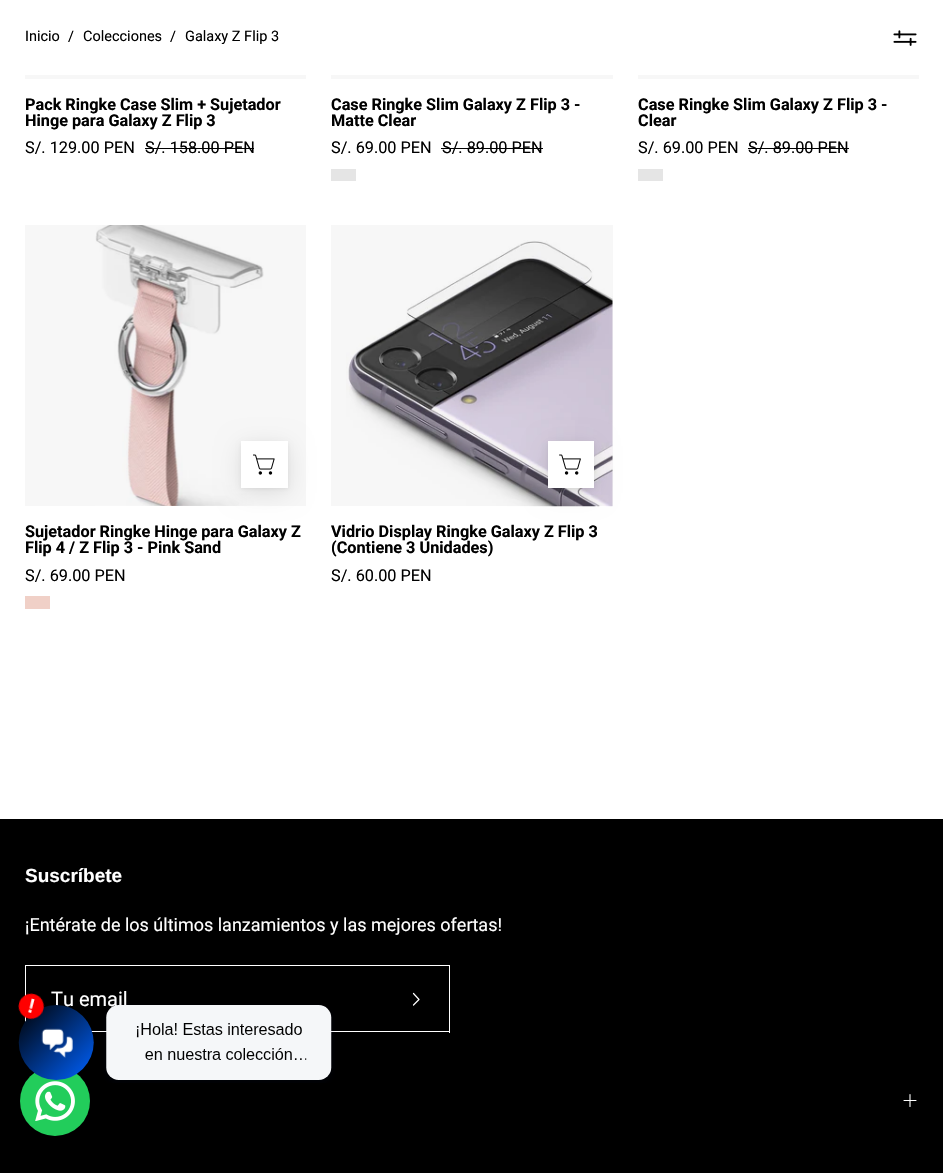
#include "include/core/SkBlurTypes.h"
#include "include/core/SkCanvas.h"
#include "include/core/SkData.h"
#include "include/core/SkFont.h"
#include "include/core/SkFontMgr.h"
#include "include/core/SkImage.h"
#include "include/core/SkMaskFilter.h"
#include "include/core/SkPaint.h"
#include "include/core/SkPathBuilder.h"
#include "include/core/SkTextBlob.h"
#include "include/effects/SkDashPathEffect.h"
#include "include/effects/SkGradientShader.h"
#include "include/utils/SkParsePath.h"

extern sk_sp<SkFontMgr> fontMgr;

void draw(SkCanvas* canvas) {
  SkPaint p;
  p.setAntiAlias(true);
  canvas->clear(SK_ColorWHITE);
  p.setColor(SkColorSetRGB(247, 247, 247));
  canvas->drawRect(SkRect::MakeLTRB(331, 225, 613, 506), p);
  canvas->drawRect(SkRect::MakeLTRB(25, 225, 306, 506), p);
  canvas->drawRect(SkRect::MakeLTRB(638, 75, 919, 79), p);
  canvas->drawRect(SkRect::MakeLTRB(331, 75, 613, 79), p);
  canvas->drawRect(SkRect::MakeLTRB(25, 75, 306, 79), p);
  canvas->drawImageRect(SkImages::DeferredFromEncodedData(SkData::MakeFromFileName("images/1.png")), SkRect::MakeLTRB(893, 30, 917, 46), SkSamplingOptions());
  p.setColor(SK_ColorBLACK);
  canvas->drawRect(SkRect::MakeLTRB(145, 148, 254, 149), p);
  canvas->drawRect(SkRect::MakeLTRB(441, 148, 543, 149), p);
  p.setColor(SkColorSetRGB(229, 229, 229));
  canvas->drawRect(SkRect::MakeLTRB(331, 169, 356, 181), p);
  p.setColor(SK_ColorBLACK);
  canvas->drawRect(SkRect::MakeLTRB(748, 148, 849, 149), p);
  p.setColor(SkColorSetRGB(229, 229, 229));
  canvas->drawRect(SkRect::MakeLTRB(638, 169, 663, 181), p);
  canvas->drawImageRect(SkImages::DeferredFromEncodedData(SkData::MakeFromFileName("images/2.png")), SkRect::MakeLTRB(95, 225, 264, 506), SkSamplingOptions());
  p.setColor(SkColorSetARGB(18, 0, 0, 0));
  p.setMaskFilter(SkMaskFilter::MakeBlur(kNormal_SkBlurStyle, 2));
  canvas->drawRect(SkRect::MakeLTRB(241, 443, 288, 489), p);
  p.setMaskFilter(nullptr);
  p.setColor(SkColorSetARGB(26, 0, 0, 0));
  p.setMaskFilter(SkMaskFilter::MakeBlur(kNormal_SkBlurStyle, 12.5f));
  canvas->drawRect(SkRect::MakeLTRB(241, 446, 288, 493), p);
  p.setMaskFilter(nullptr);
  p.setColor(SK_ColorWHITE);
  canvas->drawRect(SkRect::MakeLTRB(241, 441, 288, 488), p);
  canvas->drawImageRect(SkImages::DeferredFromEncodedData(SkData::MakeFromFileName("images/3.png")), SkRect::MakeLTRB(253, 454, 275, 475), SkSamplingOptions());
  p.setColor(SkColorSetRGB(240, 208, 199));
  canvas->drawRect(SkRect::MakeLTRB(25, 596, 50, 609), p);
  canvas->drawImageRect(SkImages::DeferredFromEncodedData(SkData::MakeFromFileName("images/4.png")), SkRect::MakeLTRB(346, 240, 613, 507), SkSamplingOptions());
  p.setColor(SkColorSetARGB(18, 0, 0, 0));
  p.setMaskFilter(SkMaskFilter::MakeBlur(kNormal_SkBlurStyle, 2));
  canvas->drawRect(SkRect::MakeLTRB(548, 443, 594, 489), p);
  p.setMaskFilter(nullptr);
  p.setColor(SkColorSetARGB(26, 0, 0, 0));
  p.setMaskFilter(SkMaskFilter::MakeBlur(kNormal_SkBlurStyle, 12.5f));
  canvas->drawRect(SkRect::MakeLTRB(548, 446, 594, 493), p);
  p.setMaskFilter(nullptr);
  p.setColor(SK_ColorWHITE);
  canvas->drawRect(SkRect::MakeLTRB(548, 441, 594, 488), p);
  canvas->drawImageRect(SkImages::DeferredFromEncodedData(SkData::MakeFromFileName("images/5.png")), SkRect::MakeLTRB(559, 454, 581, 475), SkSamplingOptions());
  p.setColor(SK_ColorBLACK);
  canvas->drawRect(SkRect::MakeLTRB(0, 819, 943, 1173), p);
  p.setColor(SK_ColorWHITE);
  canvas->drawRect(SkRect::MakeLTRB(25, 965, 450, 966), p);
  canvas->drawRect(SkRect::MakeLTRB(91, 1031, 383, 1032), p);
  canvas->drawRect(SkRect::MakeLTRB(25, 965, 26, 1022), p);
  canvas->drawRect(SkRect::MakeLTRB(449, 965, 450, 1033), p);
  canvas->drawRect(SkRect::MakeLTRB(383, 1031, 450, 1032), p);
  p.setStyle(SkPaint::kStroke_Style);
  p.setStrokeWidth(1.2f);
  p.setStrokeCap(SkPaint::kRound_Cap);
  p.setStrokeJoin(SkPaint::kRound_Join);
  canvas->drawPath(SkPathBuilder().moveTo(413.5f, 993.5f).lineTo(419, 999.5f).lineTo(413.5f, 1005).detach(), p);
  p.setStrokeWidth(1.1f);
  canvas->drawPath(SkPathBuilder().moveTo(904, 1100.5f).lineTo(916, 1100.5f).moveTo(910, 1094.5f).lineTo(910, 1106.5f).moveTo(904, 1100.5f).lineTo(916, 1100.5f).detach(), p);
  p.setStyle(SkPaint::kFill_Style);
  p.setColor(SkColorSetRGB(34, 205, 91));
  canvas->drawCircle(55, 1101, 35, p);
  canvas->drawImageRect(SkImages::DeferredFromEncodedData(SkData::MakeFromFileName("images/7.png")), SkRect::MakeLTRB(35, 1081, 75, 1121), SkSamplingOptions());
  SkFont font1(fontMgr->matchFamilyStyle("Roboto", SkFontStyle::Normal()), 14.5f);
  font1.setSubpixel(true);
  p.setColor(SK_ColorBLACK);
  canvas->drawString("Inicio", 25, 41, font1, p);
  canvas->drawString("/", 68, 41, font1, p);
  canvas->drawString("Colecciones", 83, 41, font1, p);
  canvas->drawString("/", 170, 41, font1, p);
  canvas->drawString("Galaxy Z Flip 3", 185, 41, font1, p);
  SkFont font2(fontMgr->matchFamilyStyle("Roboto", SkFontStyle::Bold()), 16.25f);
  font2.setSubpixel(true);
  canvas->drawString("Pack Ringke Case Slim + Sujetador", 25, 110, font2, p);
  canvas->drawString("Hinge para Galaxy Z Flip 3", 25, 126, font2, p);
  SkFont font3(fontMgr->matchFamilyStyle("Roboto", SkFontStyle::Normal()), 16.25f);
  font3.setSubpixel(true);
  canvas->drawString("S/. 129.00 PEN", 25, 153, font3, p);
  canvas->drawString("S/. 158.00 PEN", 145, 153, font3, p);
  canvas->drawString("Case Ringke Slim Galaxy Z Flip 3 -", 331, 110, font2, p);
  canvas->drawString("Matte Clear", 331, 126, font2, p);
  canvas->drawString("S/. 69.00 PEN", 331, 153, font3, p);
  canvas->drawString("S/. 89.00 PEN", 442, 153, font3, p);
  canvas->drawString("Case Ringke Slim Galaxy Z Flip 3 -", 638, 110, font2, p);
  canvas->drawString("Clear", 638, 126, font2, p);
  canvas->drawString("S/. 69.00 PEN", 638, 153, font3, p);
  canvas->drawString("S/. 89.00 PEN", 748, 153, font3, p);
  canvas->drawString("Sujetador Ringke Hinge para Galaxy Z", 25, 537, font2, p);
  canvas->drawString("Flip 4 / Z Flip 3 - Pink Sand", 25, 553, font2, p);
  canvas->drawString("S/. 69.00 PEN", 25, 581, font3, p);
  canvas->drawString("Vidrio Display Ringke Galaxy Z Flip 3", 331, 537, font2, p);
  canvas->drawString("(Contiene 3 Unidades)", 331, 553, font2, p);
  canvas->drawString("S/. 60.00 PEN", 331, 581, font3, p);
  SkFont font4(fontMgr->matchFamilyStyle("Liberation Sans", SkFontStyle::Bold()), 19);
  font4.setSubpixel(true);
  p.setColor(SK_ColorWHITE);
  canvas->drawString("Suscríbete", 25, 882, font4, p);
  SkFont font5(fontMgr->matchFamilyStyle("Roboto", SkFontStyle::Normal()), 18);
  font5.setSubpixel(true);
  canvas->drawString("¡Entérate de los últimos lanzamientos y las mejores ofertas!", 25, 931, font5, p);
  SkFont font6(fontMgr->matchFamilyStyle("Roboto", SkFontStyle::Normal()), 20);
  font6.setSubpixel(true);
  canvas->drawString("Tu email", 51, 1006, font6, p);
  canvas->drawImageRect(SkImages::DeferredFromEncodedData(SkData::MakeFromFileName("images/6.png")), SkRect::MakeLTRB(18, 993, 335, 1083), SkSamplingOptions());
}
